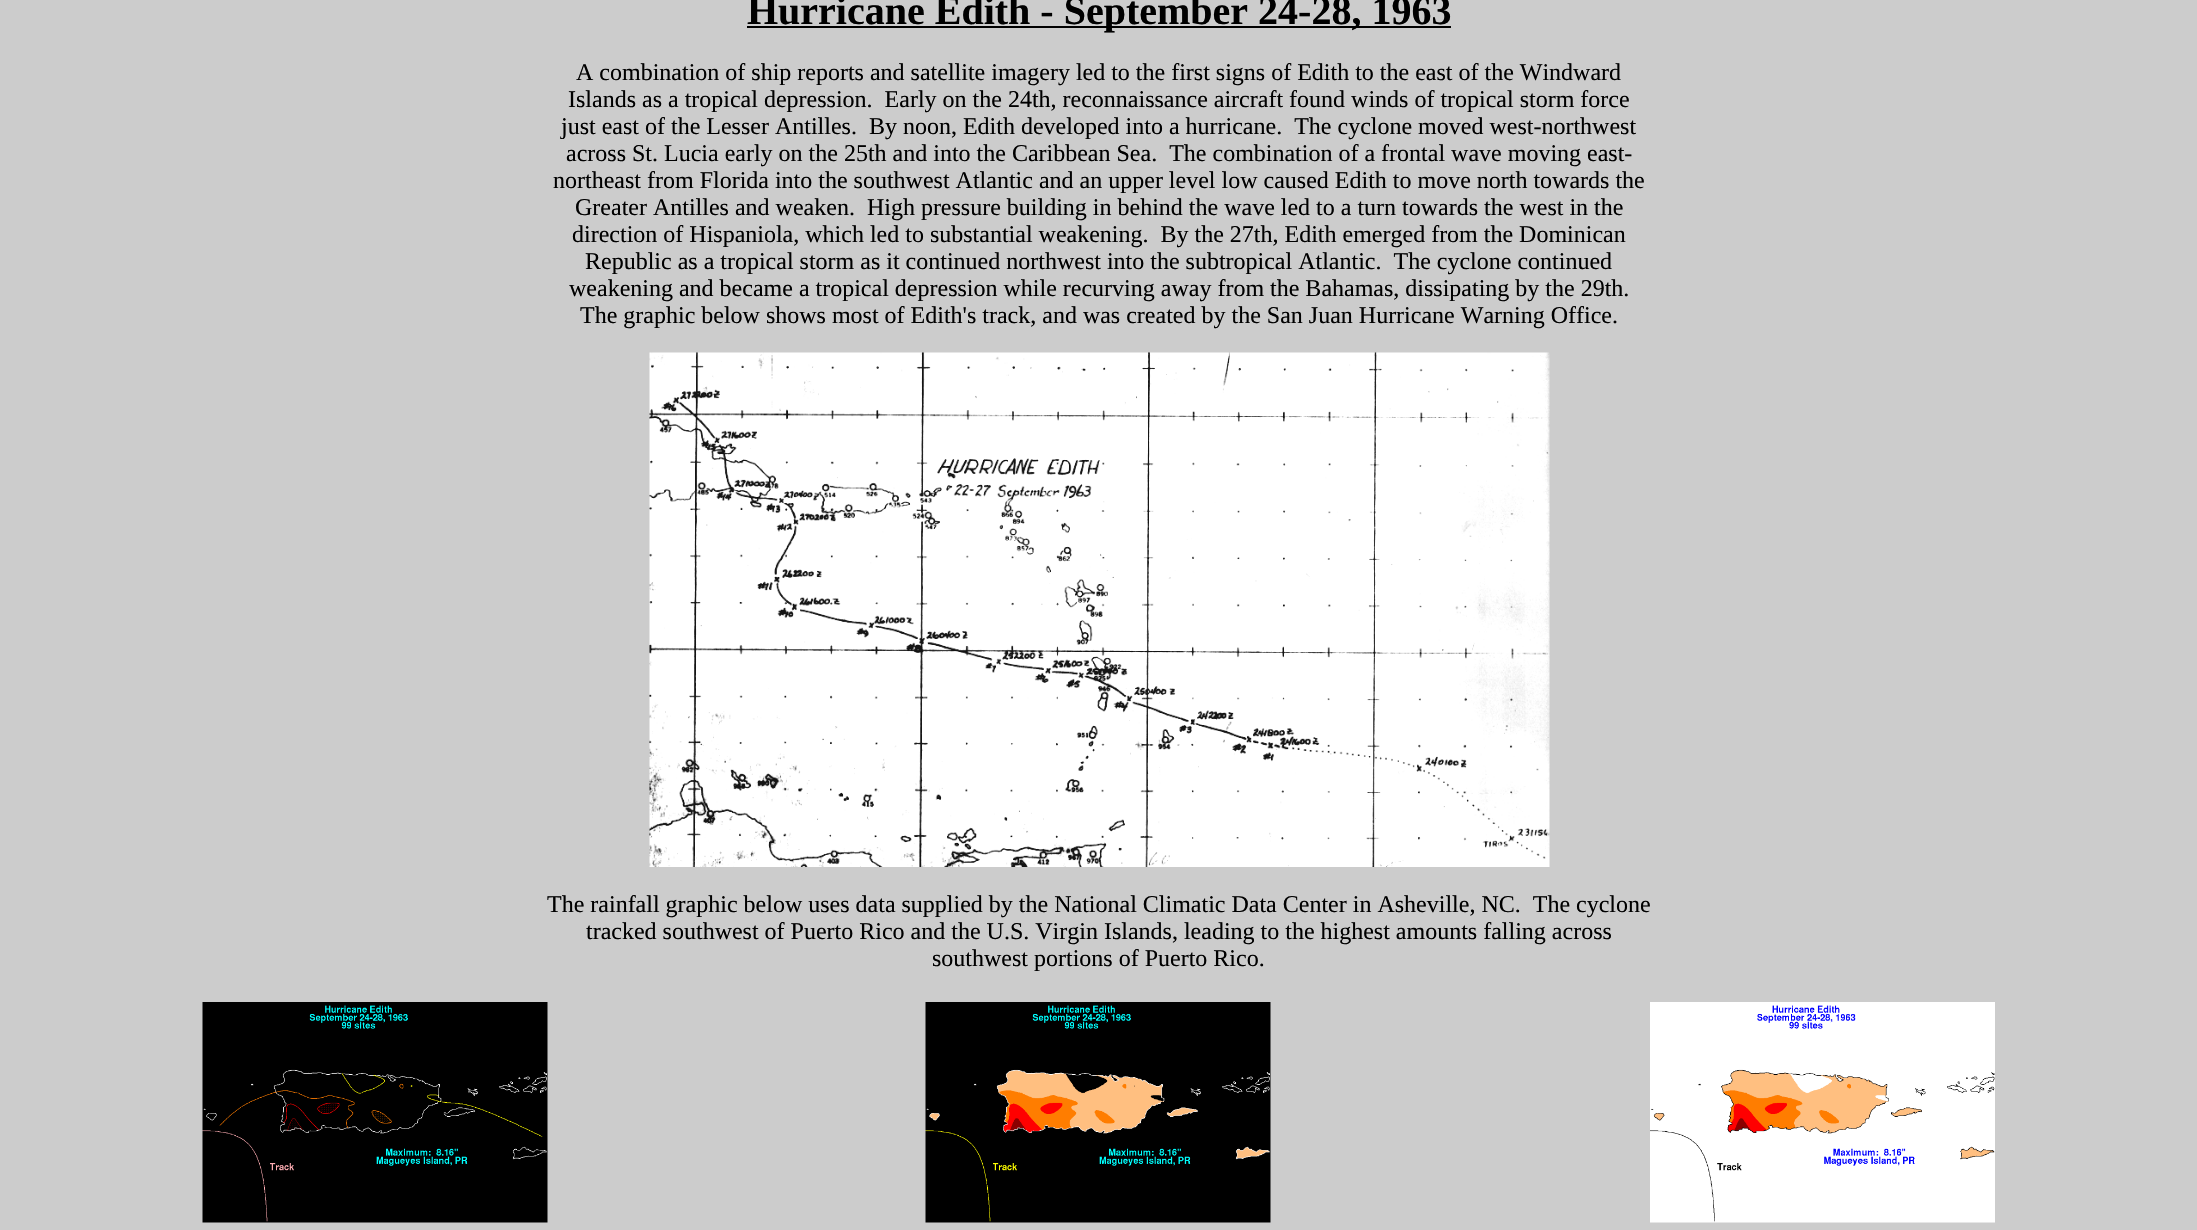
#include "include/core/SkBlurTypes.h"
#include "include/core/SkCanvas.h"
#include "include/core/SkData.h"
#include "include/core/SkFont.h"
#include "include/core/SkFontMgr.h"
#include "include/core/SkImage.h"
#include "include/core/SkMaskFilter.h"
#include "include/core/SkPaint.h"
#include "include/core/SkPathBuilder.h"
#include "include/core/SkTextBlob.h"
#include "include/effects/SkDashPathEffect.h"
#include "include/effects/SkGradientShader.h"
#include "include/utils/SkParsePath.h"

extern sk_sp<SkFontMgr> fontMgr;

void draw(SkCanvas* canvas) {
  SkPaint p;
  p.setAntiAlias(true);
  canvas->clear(SkColorSetRGB(204, 204, 204));
  p.setColor(SK_ColorBLACK);
  canvas->drawRect(SkRect::MakeLTRB(747, 26, 1451, 28), p);
  canvas->drawImageRect(SkImages::DeferredFromEncodedData(SkData::MakeFromFileName("images/1.png")), SkRect::MakeLTRB(649, 352, 1550, 867), SkSamplingOptions());
  canvas->drawImageRect(SkImages::DeferredFromEncodedData(SkData::MakeFromFileName("images/2.png")), SkRect::MakeLTRB(202, 1002, 548, 1223), SkSamplingOptions());
  canvas->drawImageRect(SkImages::DeferredFromEncodedData(SkData::MakeFromFileName("images/3.png")), SkRect::MakeLTRB(925, 1002, 1271, 1223), SkSamplingOptions());
  canvas->drawImageRect(SkImages::DeferredFromEncodedData(SkData::MakeFromFileName("images/4.png")), SkRect::MakeLTRB(1650, 1002, 1995, 1223), SkSamplingOptions());
  SkFont font1(fontMgr->matchFamilyStyle("Liberation Serif", SkFontStyle::Bold()), 40);
  font1.setSubpixel(true);
  canvas->drawString("Hurricane Edith - September 24-28, 1963", 747, 24, font1, p);
  SkFont font2(fontMgr->matchFamilyStyle("Liberation Serif", SkFontStyle::Normal()), 24);
  font2.setSubpixel(true);
  canvas->drawString("A combination of ship reports and satellite imagery led to the first signs of Edith to the east of the Windward", 576, 80, font2, p);
  canvas->drawString("Islands as a tropical depression.  Early on the 24th, reconnaissance aircraft found winds of tropical storm force", 568, 107, font2, p);
  canvas->drawString("just east of the Lesser Antilles.  By noon, Edith developed into a hurricane.  The cyclone moved west-northwest", 561, 134, font2, p);
  canvas->drawString("across St. Lucia early on the 25th and into the Caribbean Sea.  The combination of a frontal wave moving east-", 566, 161, font2, p);
  canvas->drawString("northeast from Florida into the southwest Atlantic and an upper level low caused Edith to move north towards the", 553, 188, font2, p);
  canvas->drawString("Greater Antilles and weaken.  High pressure building in behind the wave led to a turn towards the west in the", 575, 215, font2, p);
  canvas->drawString("direction of Hispaniola, which led to substantial weakening.  By the 27th, Edith emerged from the Dominican", 572, 242, font2, p);
  canvas->drawString("Republic as a tropical storm as it continued northwest into the subtropical Atlantic.  The cyclone continued", 585, 269, font2, p);
  canvas->drawString("weakening and became a tropical depression while recurving away from the Bahamas, dissipating by the 29th.", 569, 296, font2, p);
  canvas->drawString("The graphic below shows most of Edith's track, and was created by the San Juan Hurricane Warning Office.", 580, 323, font2, p);
  canvas->drawString("The rainfall graphic below uses data supplied by the National Climatic Data Center in Asheville, NC.  The cyclone", 547, 912, font2, p);
  canvas->drawString("tracked southwest of Puerto Rico and the U.S. Virgin Islands, leading to the highest amounts falling across", 586, 939, font2, p);
  canvas->drawString("southwest portions of Puerto Rico.", 932, 966, font2, p);
}
